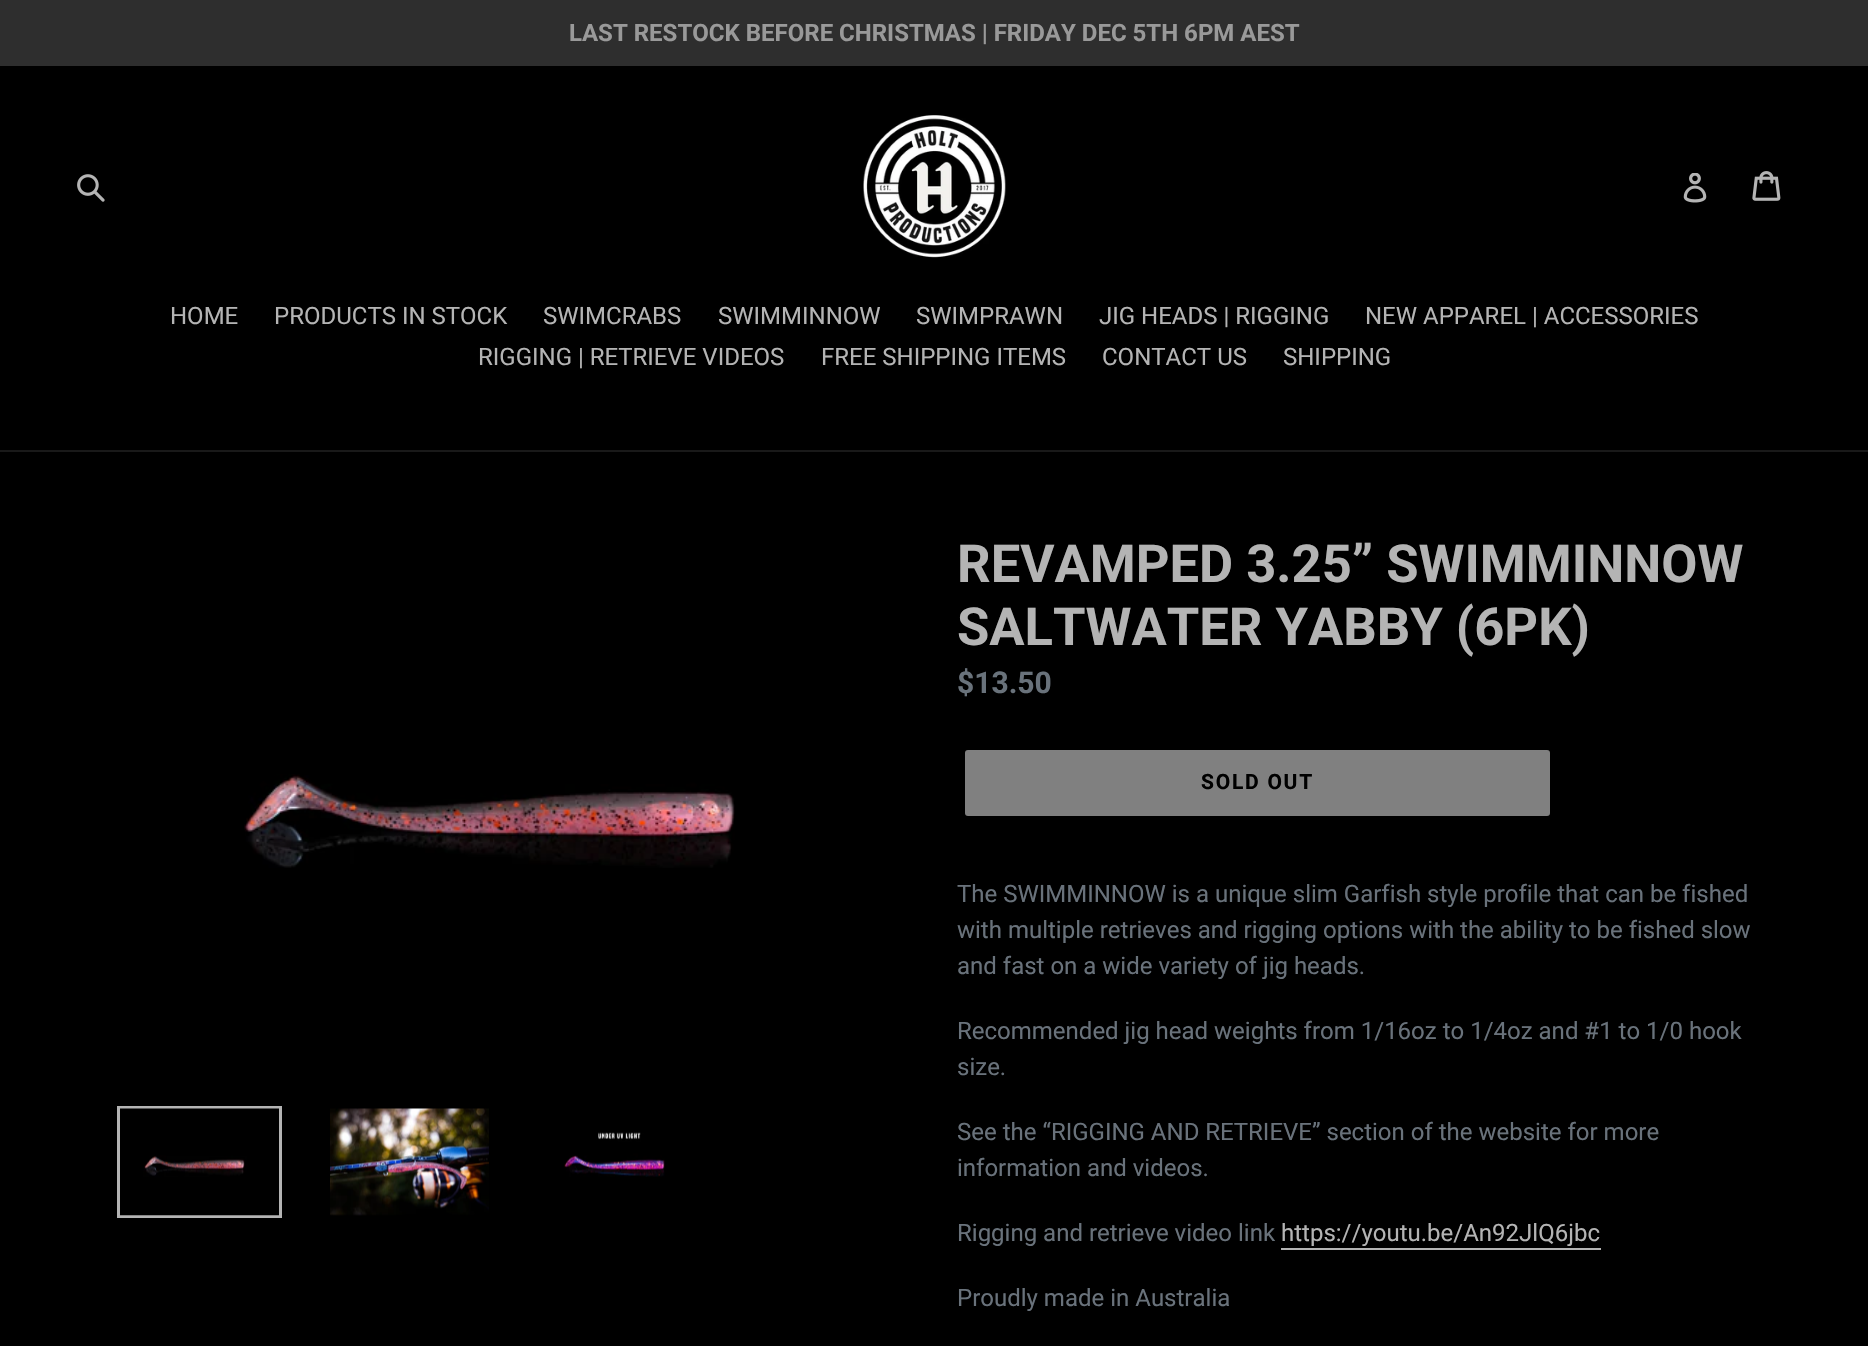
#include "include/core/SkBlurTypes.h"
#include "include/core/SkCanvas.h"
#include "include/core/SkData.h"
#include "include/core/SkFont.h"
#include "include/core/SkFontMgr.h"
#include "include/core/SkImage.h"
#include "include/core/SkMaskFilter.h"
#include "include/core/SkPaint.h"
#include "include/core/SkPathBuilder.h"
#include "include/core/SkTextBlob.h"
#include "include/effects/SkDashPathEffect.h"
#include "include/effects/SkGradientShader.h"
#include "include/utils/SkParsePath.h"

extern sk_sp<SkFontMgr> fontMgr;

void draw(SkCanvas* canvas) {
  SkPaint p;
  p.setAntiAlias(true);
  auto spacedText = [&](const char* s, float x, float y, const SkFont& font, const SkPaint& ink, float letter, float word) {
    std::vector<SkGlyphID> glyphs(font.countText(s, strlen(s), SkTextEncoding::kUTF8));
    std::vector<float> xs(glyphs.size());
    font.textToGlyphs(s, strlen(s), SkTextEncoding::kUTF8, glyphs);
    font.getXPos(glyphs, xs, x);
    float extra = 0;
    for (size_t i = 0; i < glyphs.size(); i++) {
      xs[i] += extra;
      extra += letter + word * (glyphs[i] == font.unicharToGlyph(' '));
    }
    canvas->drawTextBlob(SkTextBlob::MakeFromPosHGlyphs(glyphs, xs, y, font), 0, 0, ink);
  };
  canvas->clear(SK_ColorBLACK);
  p.setColor(SkColorSetRGB(46, 46, 46));
  canvas->drawRect(SkRect::MakeLTRB(0, 0, 1868, 66), p);
  canvas->drawImageRect(SkImages::DeferredFromEncodedData(SkData::MakeFromFileName("images/1.png")), SkRect::MakeLTRB(77, 174, 105, 202), SkSamplingOptions());
  canvas->drawImageRect(SkImages::DeferredFromEncodedData(SkData::MakeFromFileName("images/2.png")), SkRect::MakeLTRB(863, 115, 1006, 258), SkSamplingOptions());
  canvas->drawImageRect(SkImages::DeferredFromEncodedData(SkData::MakeFromFileName("images/3.png")), SkRect::MakeLTRB(1683, 173, 1707, 203), SkSamplingOptions());
  canvas->drawImageRect(SkImages::DeferredFromEncodedData(SkData::MakeFromFileName("images/4.png")), SkRect::MakeLTRB(1752, 171, 1781, 201), SkSamplingOptions());
  p.setColor(SkColorSetRGB(25, 25, 25));
  canvas->drawRect(SkRect::MakeLTRB(0, 450, 1868, 452), p);
  canvas->drawImageRect(SkImages::DeferredFromEncodedData(SkData::MakeFromFileName("images/5.png")), SkRect::MakeLTRB(244, 774, 735, 868), SkSamplingOptions());
  p.setStyle(SkPaint::kStroke_Style);
  p.setStrokeWidth(3);
  p.setColor(SkColorSetRGB(180, 180, 180));
  canvas->drawRect(SkRect::MakeLTRB(118.5f, 1107.5f, 280.5f, 1216.5f), p);
  canvas->drawImageRect(SkImages::DeferredFromEncodedData(SkData::MakeFromFileName("images/6.png")), SkRect::MakeLTRB(120, 1108, 279, 1216), SkSamplingOptions());
  canvas->drawImageRect(SkImages::DeferredFromEncodedData(SkData::MakeFromFileName("images/7.png")), SkRect::MakeLTRB(330, 1108, 489, 1216), SkSamplingOptions());
  canvas->drawImageRect(SkImages::DeferredFromEncodedData(SkData::MakeFromFileName("images/8.png")), SkRect::MakeLTRB(564, 1132, 665, 1177), SkSamplingOptions());
  p.setStyle(SkPaint::kFill_Style);
  p.setColor(SkColorSetRGB(128, 128, 128));
  canvas->drawRoundRect(SkRect::MakeLTRB(965, 750, 1550, 816), 3, 3, p);
  p.setColor(SkColorSetRGB(180, 180, 180));
  canvas->drawRect(SkRect::MakeLTRB(1281, 1248, 1601, 1250), p);
  SkFont font1(fontMgr->matchFamilyStyle("Roboto", SkFontStyle::Bold()), 24);
  font1.setSubpixel(true);
  p.setColor(SkColorSetRGB(153, 153, 153));
  canvas->drawString("LAST RESTOCK BEFORE CHRISTMAS | FRIDAY DEC 5TH 6PM AEST", 569, 41, font1, p);
  SkFont font2(fontMgr->matchFamilyStyle("Roboto", SkFontStyle::Normal()), 24);
  font2.setSubpixel(true);
  p.setColor(SkColorSetRGB(180, 180, 180));
  canvas->drawString("HOME", 170, 324, font2, p);
  canvas->drawString("PRODUCTS IN STOCK", 274, 324, font2, p);
  canvas->drawString("SWIMCRABS", 543, 324, font2, p);
  canvas->drawString("SWIMMINNOW", 718, 324, font2, p);
  canvas->drawString("SWIMPRAWN", 916, 324, font2, p);
  canvas->drawString("JIG HEADS | RIGGING", 1099, 324, font2, p);
  canvas->drawString("NEW APPAREL | ACCESSORIES", 1365, 324, font2, p);
  canvas->drawString("RIGGING | RETRIEVE VIDEOS", 478, 365, font2, p);
  canvas->drawString("FREE SHIPPING ITEMS", 821, 365, font2, p);
  canvas->drawString("CONTACT US", 1102, 365, font2, p);
  canvas->drawString("SHIPPING", 1283, 365, font2, p);
  SkFont font3(fontMgr->matchFamilyStyle("Roboto", SkFontStyle::Bold()), 52.5f);
  font3.setSubpixel(true);
  canvas->drawString("REVAMPED 3.25” SWIMMINNOW", 957, 582, font3, p);
  canvas->drawString("SALTWATER YABBY (6PK)", 957, 645, font3, p);
  SkFont font4(fontMgr->matchFamilyStyle("Roboto", SkFontStyle::Bold()), 30);
  font4.setSubpixel(true);
  p.setColor(SkColorSetRGB(105, 114, 123));
  canvas->drawString("$13.50", 957, 693, font4, p);
  SkFont font5(fontMgr->matchFamilyStyle("Roboto", SkFontStyle::Bold()), 21);
  font5.setSubpixel(true);
  p.setColor(SK_ColorBLACK);
  spacedText("SOLD OUT", 1201, 789, font5, p, 1.75f, 0);
  p.setColor(SkColorSetRGB(105, 114, 123));
  canvas->drawString("The SWIMMINNOW is a unique slim Garfish style profile that can be fished", 957, 902, font2, p);
  canvas->drawString("with multiple retrieves and rigging options with the ability to be fished slow", 957, 938, font2, p);
  canvas->drawString("and fast on a wide variety of jig heads.", 957, 974, font2, p);
  canvas->drawString("Recommended jig head weights from 1/16oz to 1/4oz and #1 to 1/0 hook", 957, 1039, font2, p);
  canvas->drawString("size.", 957, 1075, font2, p);
  canvas->drawString("See the “RIGGING AND RETRIEVE” section of the website for more", 957, 1140, font2, p);
  canvas->drawString("information and videos.", 957, 1176, font2, p);
  canvas->drawString("Rigging and retrieve video link", 957, 1241, font2, p);
  p.setColor(SkColorSetRGB(180, 180, 180));
  canvas->drawString("https://youtu.be/An92JlQ6jbc", 1281, 1241, font2, p);
  p.setColor(SkColorSetRGB(105, 114, 123));
  canvas->drawString("Proudly made in Australia", 957, 1306, font2, p);
}
